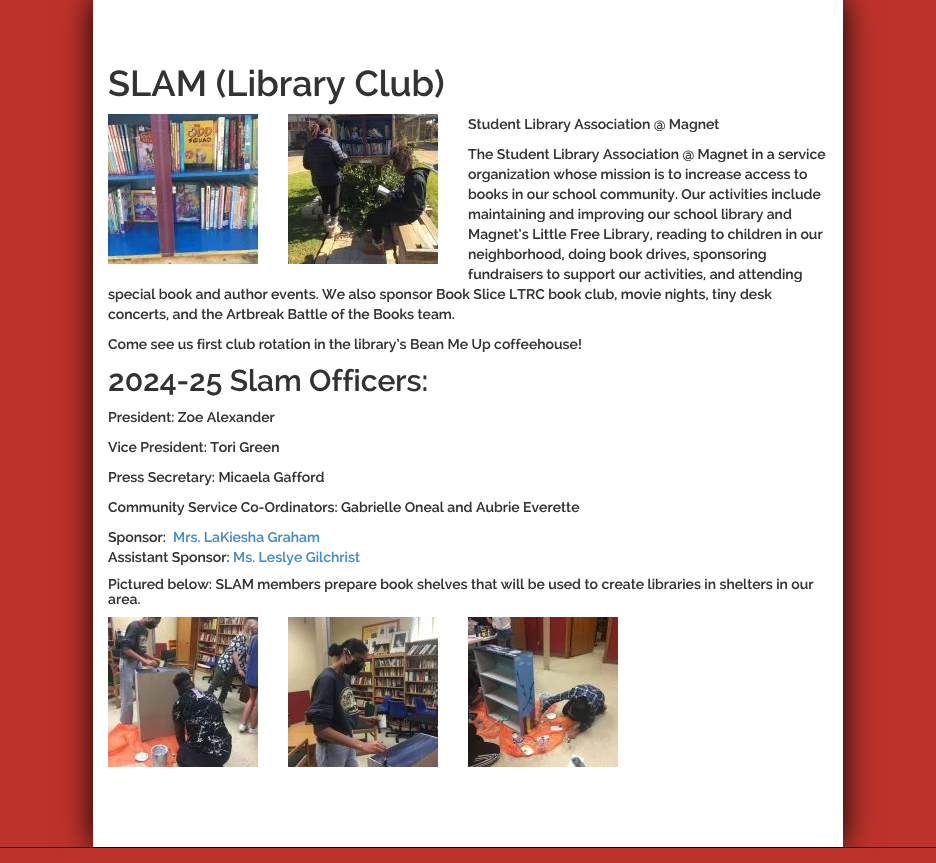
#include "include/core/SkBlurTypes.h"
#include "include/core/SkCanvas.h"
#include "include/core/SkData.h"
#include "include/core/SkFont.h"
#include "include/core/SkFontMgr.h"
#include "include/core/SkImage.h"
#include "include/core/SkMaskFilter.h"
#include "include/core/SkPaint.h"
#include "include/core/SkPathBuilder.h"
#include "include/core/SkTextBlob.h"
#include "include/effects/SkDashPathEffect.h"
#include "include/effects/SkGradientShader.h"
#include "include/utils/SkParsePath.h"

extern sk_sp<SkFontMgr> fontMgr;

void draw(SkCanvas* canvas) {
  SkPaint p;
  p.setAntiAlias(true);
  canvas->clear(SkColorSetRGB(189, 50, 42));
  p.setColor(SK_ColorBLACK);
  p.setMaskFilter(SkMaskFilter::MakeBlur(kNormal_SkBlurStyle, 15));
  canvas->drawRect(SkRect::MakeLTRB(93, -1, 843, 847), p);
  p.setMaskFilter(nullptr);
  p.setColor(SK_ColorWHITE);
  canvas->drawRect(SkRect::MakeLTRB(93, 0, 843, 847), p);
  canvas->drawImageRect(SkImages::DeferredFromEncodedData(SkData::MakeFromFileName("images/1.png")), SkRect::MakeLTRB(108, 114, 258, 264), SkSamplingOptions());
  canvas->drawImageRect(SkImages::DeferredFromEncodedData(SkData::MakeFromFileName("images/2.png")), SkRect::MakeLTRB(288, 114, 438, 264), SkSamplingOptions());
  canvas->drawImageRect(SkImages::DeferredFromEncodedData(SkData::MakeFromFileName("images/3.png")), SkRect::MakeLTRB(108, 617, 258, 767), SkSamplingOptions());
  canvas->drawImageRect(SkImages::DeferredFromEncodedData(SkData::MakeFromFileName("images/4.png")), SkRect::MakeLTRB(288, 617, 438, 767), SkSamplingOptions());
  canvas->drawImageRect(SkImages::DeferredFromEncodedData(SkData::MakeFromFileName("images/5.png")), SkRect::MakeLTRB(468, 617, 618, 767), SkSamplingOptions());
  p.setColor(SkColorSetRGB(189, 50, 42));
  canvas->drawRect(SkRect::MakeLTRB(65, 848, 871, 863), p);
  p.setColor(SK_ColorBLACK);
  canvas->drawRect(SkRect::MakeLTRB(0, 847, 936, 848), p);
  SkFont font1(fontMgr->matchFamilyStyle("Raleway", SkFontStyle(600, SkFontStyle::kNormal_Width, SkFontStyle::kUpright_Slant)), 36);
  font1.setSubpixel(true);
  p.setColor(SkColorSetRGB(51, 51, 51));
  canvas->drawString("SLAM (Library Club)", 108, 96, font1, p);
  SkFont font2(fontMgr->matchFamilyStyle("Raleway", SkFontStyle(600, SkFontStyle::kNormal_Width, SkFontStyle::kUpright_Slant)), 14);
  font2.setSubpixel(true);
  canvas->drawString("Student Library Association @ Magnet", 468, 129, font2, p);
  canvas->drawString("The Student Library Association @ Magnet in a service", 468, 159, font2, p);
  canvas->drawString("organization whose mission is to increase access to", 468, 179, font2, p);
  canvas->drawString("books in our school community. Our activities include", 468, 199, font2, p);
  canvas->drawString("maintaining and improving our school library and", 468, 219, font2, p);
  canvas->drawString("Magnet’s Little Free Library, reading to children in our", 468, 239, font2, p);
  canvas->drawString("neighborhood, doing book drives, sponsoring", 468, 259, font2, p);
  canvas->drawString("fundraisers to support our activities, and attending", 468, 279, font2, p);
  canvas->drawString("special book and author events. We also sponsor Book Slice LTRC book club, movie nights, tiny desk", 108, 299, font2, p);
  canvas->drawString("concerts, and the Artbreak Battle of the Books team.", 108, 319, font2, p);
  canvas->drawString("Come see us first club rotation in the library’s Bean Me Up coffeehouse!", 108, 349, font2, p);
  SkFont font3(fontMgr->matchFamilyStyle("Raleway", SkFontStyle(600, SkFontStyle::kNormal_Width, SkFontStyle::kUpright_Slant)), 30);
  font3.setSubpixel(true);
  canvas->drawString("2024-25 Slam Officers:", 108, 391, font3, p);
  canvas->drawString("President: Zoe Alexander", 108, 422, font2, p);
  canvas->drawString("Vice President: Tori Green", 108, 452, font2, p);
  canvas->drawString("Press Secretary: Micaela Gafford", 108, 482, font2, p);
  canvas->drawString("Community Service Co-Ordinators: Gabrielle Oneal and Aubrie Everette", 108, 512, font2, p);
  canvas->drawString("Sponsor:", 108, 542, font2, p);
  p.setColor(SkColorSetRGB(66, 139, 202));
  canvas->drawString("Mrs. LaKiesha Graham", 173, 542, font2, p);
  p.setColor(SkColorSetRGB(51, 51, 51));
  canvas->drawString("Assistant Sponsor:", 108, 562, font2, p);
  p.setColor(SkColorSetRGB(66, 139, 202));
  canvas->drawString("Ms. Leslye Gilchrist", 233, 562, font2, p);
  p.setColor(SkColorSetRGB(51, 51, 51));
  canvas->drawString("Pictured below: SLAM members prepare book shelves that will be used to create libraries in shelters in our", 108, 589, font2, p);
  canvas->drawString("area.", 108, 604, font2, p);
}
